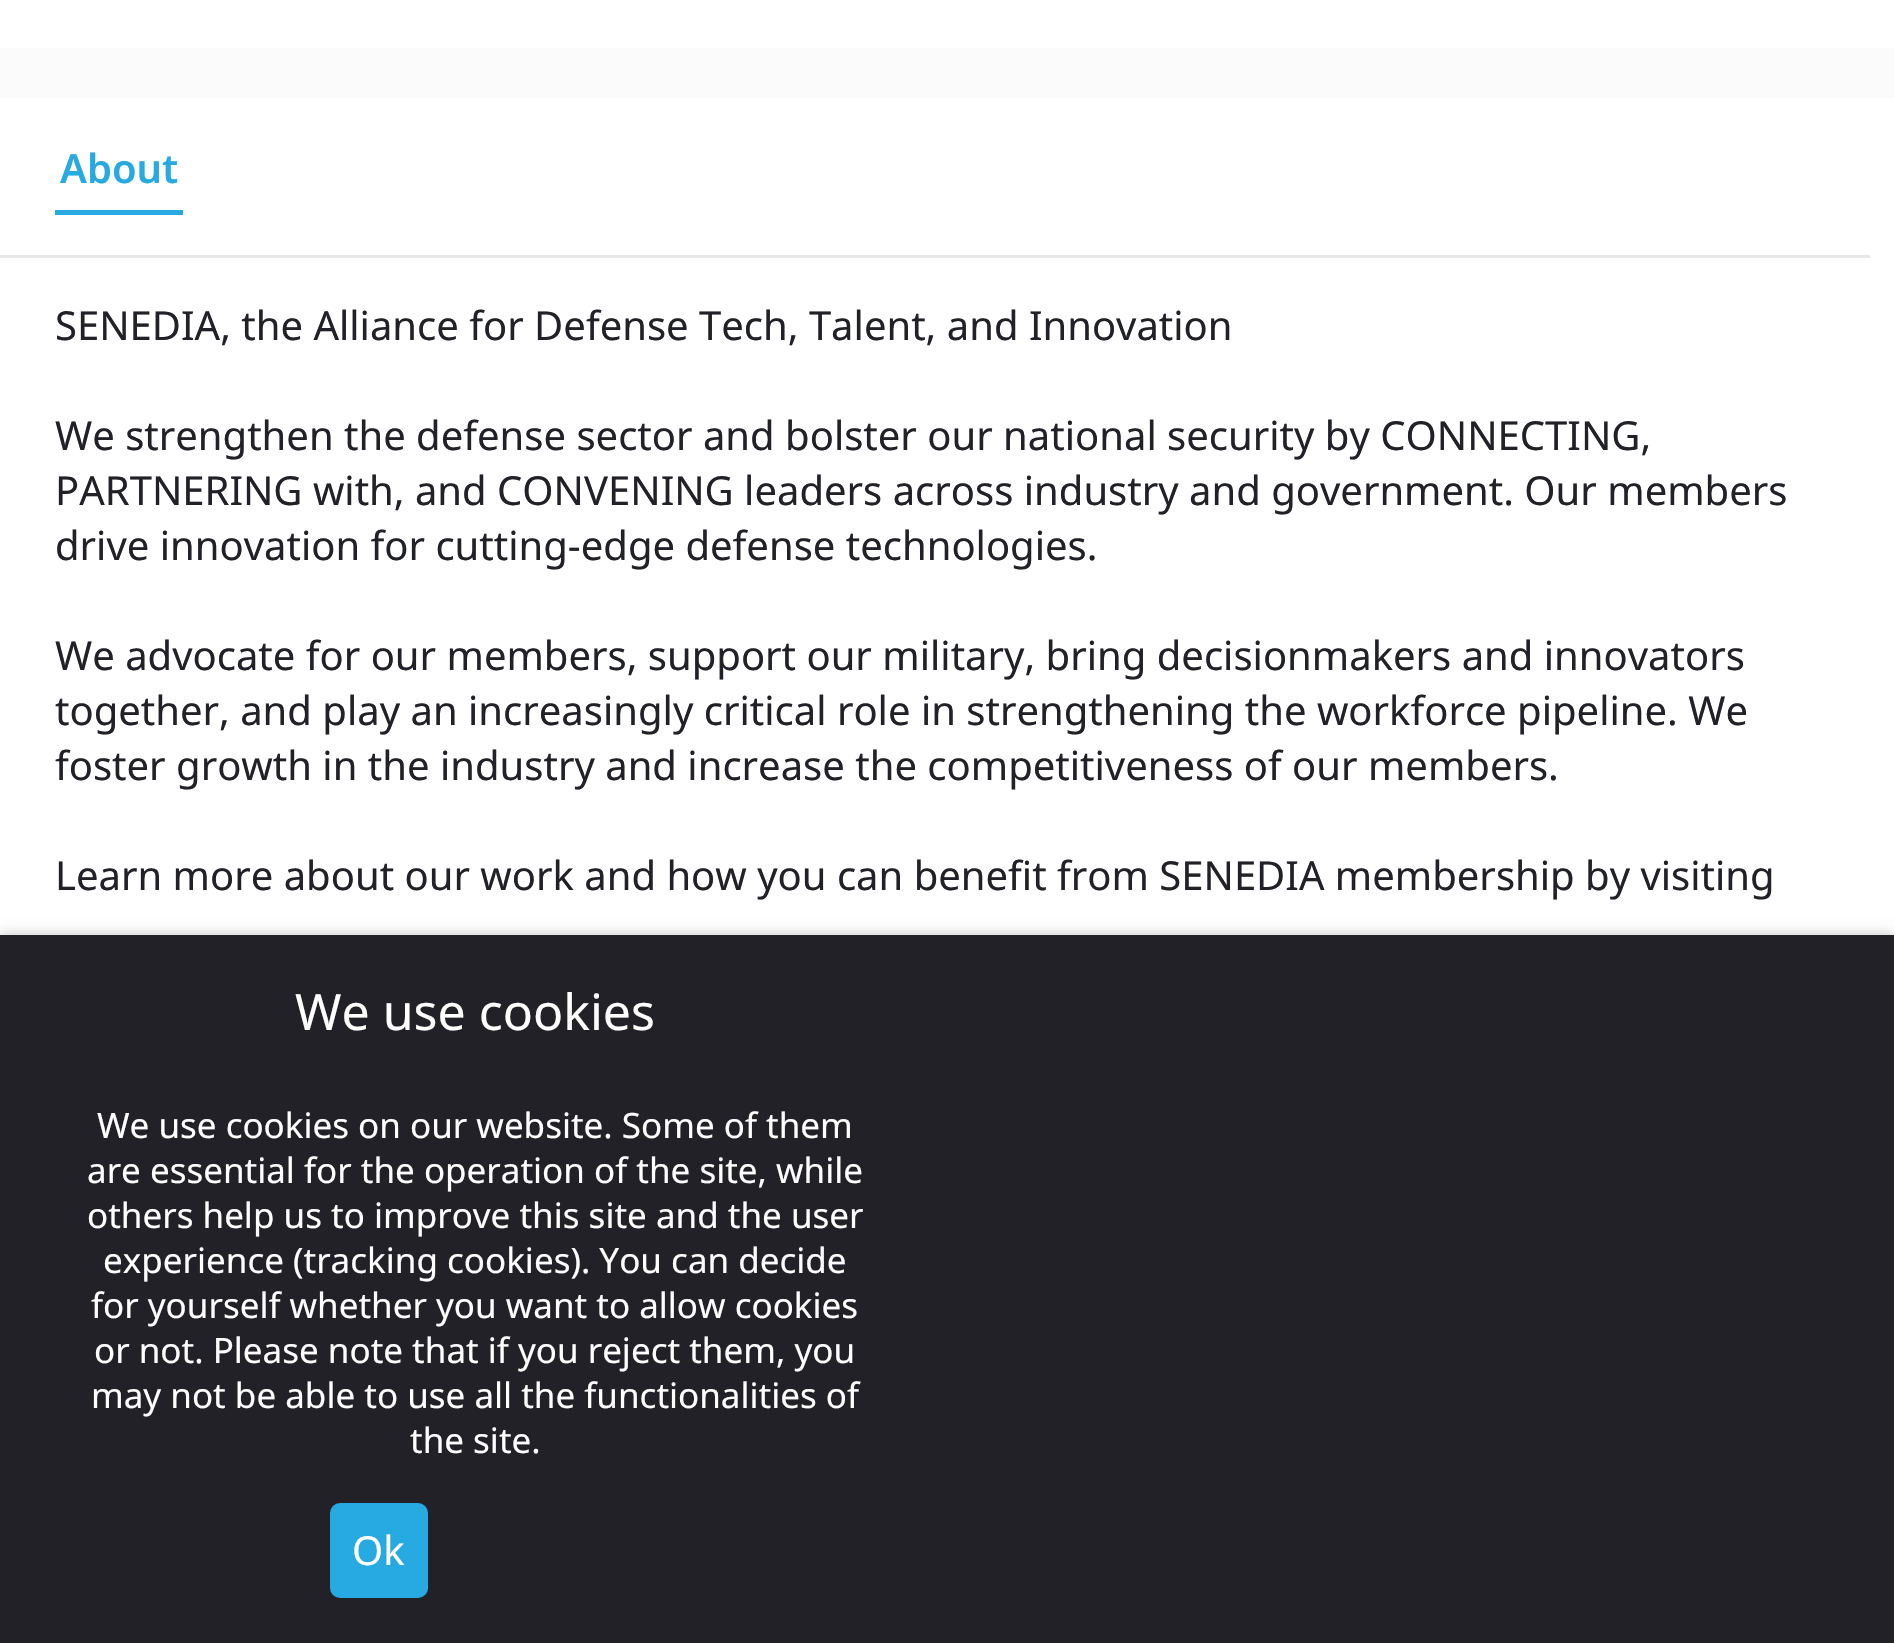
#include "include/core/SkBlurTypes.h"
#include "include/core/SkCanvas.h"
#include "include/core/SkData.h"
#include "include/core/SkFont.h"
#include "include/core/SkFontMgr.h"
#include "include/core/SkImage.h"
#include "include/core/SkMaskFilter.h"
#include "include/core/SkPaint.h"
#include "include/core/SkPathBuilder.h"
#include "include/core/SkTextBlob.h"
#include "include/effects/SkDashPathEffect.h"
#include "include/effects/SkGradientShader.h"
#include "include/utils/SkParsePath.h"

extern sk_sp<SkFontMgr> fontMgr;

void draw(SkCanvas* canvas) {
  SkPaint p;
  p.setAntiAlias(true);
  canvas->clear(SK_ColorWHITE);
  p.setColor(SkColorSetRGB(251, 251, 251));
  canvas->drawRect(SkRect::MakeLTRB(0, 48, 1894, 98), p);
  p.setColor(SkColorSetRGB(231, 231, 231));
  canvas->drawRect(SkRect::MakeLTRB(0, 255, 1870, 258), p);
  p.setColor(SkColorSetRGB(39, 169, 225));
  canvas->drawRect(SkRect::MakeLTRB(55, 210, 183, 215), p);
  p.setColor(SkColorSetARGB(64, 0, 0, 0));
  p.setMaskFilter(SkMaskFilter::MakeBlur(kNormal_SkBlurStyle, 6));
  canvas->drawRect(SkRect::MakeLTRB(0, 935, 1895, 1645), p);
  p.setMaskFilter(nullptr);
  p.setColor(SkColorSetRGB(34, 33, 40));
  canvas->drawRect(SkRect::MakeLTRB(0, 935, 1894, 1643), p);
  p.setColor(SkColorSetRGB(39, 169, 225));
  canvas->drawRoundRect(SkRect::MakeLTRB(330, 1503, 428, 1598), 10, 10, p);
  SkFont font1(fontMgr->matchFamilyStyle("Noto Sans", SkFontStyle(600, SkFontStyle::kNormal_Width, SkFontStyle::kUpright_Slant)), 40);
  font1.setSubpixel(true);
  canvas->drawString("About", 60, 183, font1, p);
  SkFont font2(fontMgr->matchFamilyStyle("Noto Sans", SkFontStyle::Normal()), 40);
  font2.setSubpixel(true);
  p.setColor(SkColorSetRGB(34, 33, 40));
  canvas->drawString("SENEDIA, the Alliance for Defense Tech, Talent, and Innovation", 55, 340, font2, p);
  canvas->drawString("We strengthen the defense sector and bolster our national security by CONNECTING,", 55, 450, font2, p);
  canvas->drawString("PARTNERING with, and CONVENING leaders across industry and government. Our members", 55, 505, font2, p);
  canvas->drawString("drive innovation for cutting-edge defense technologies.", 55, 560, font2, p);
  canvas->drawString("We advocate for our members, support our military, bring decisionmakers and innovators", 55, 670, font2, p);
  canvas->drawString("together, and play an increasingly critical role in strengthening the workforce pipeline. We", 55, 725, font2, p);
  canvas->drawString("foster growth in the industry and increase the competitiveness of our members.", 55, 780, font2, p);
  canvas->drawString("Learn more about our work and how you can benefit from SENEDIA membership by visiting", 55, 890, font2, p);
  SkFont font3(fontMgr->matchFamilyStyle("Noto Sans", SkFontStyle::Normal()), 50);
  font3.setSubpixel(true);
  p.setColor(SK_ColorWHITE);
  canvas->drawString("We use cookies", 295, 1030, font3, p);
  SkFont font4(fontMgr->matchFamilyStyle("Noto Sans", SkFontStyle::Normal()), 35);
  font4.setSubpixel(true);
  canvas->drawString("We use cookies on our website. Some of them", 97, 1138, font4, p);
  canvas->drawString("are essential for the operation of the site, while", 87, 1183, font4, p);
  canvas->drawString("others help us to improve this site and the user", 87, 1228, font4, p);
  canvas->drawString("experience (tracking cookies). You can decide", 103, 1273, font4, p);
  canvas->drawString("for yourself whether you want to allow cookies", 91, 1318, font4, p);
  canvas->drawString("or not. Please note that if you reject them, you", 94, 1363, font4, p);
  canvas->drawString("may not be able to use all the functionalities of", 91, 1408, font4, p);
  canvas->drawString("the site.", 410, 1453, font4, p);
  canvas->drawString("Ok", 352, 1565, font2, p);
}
